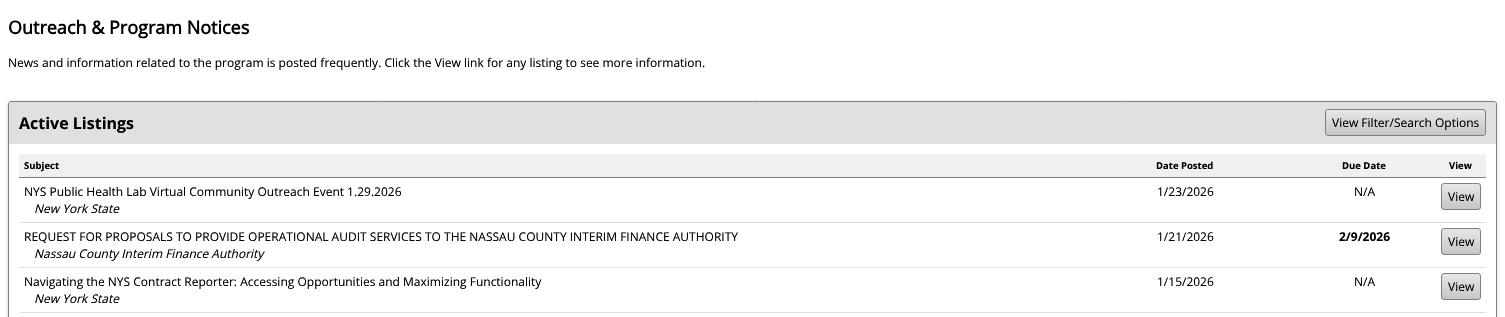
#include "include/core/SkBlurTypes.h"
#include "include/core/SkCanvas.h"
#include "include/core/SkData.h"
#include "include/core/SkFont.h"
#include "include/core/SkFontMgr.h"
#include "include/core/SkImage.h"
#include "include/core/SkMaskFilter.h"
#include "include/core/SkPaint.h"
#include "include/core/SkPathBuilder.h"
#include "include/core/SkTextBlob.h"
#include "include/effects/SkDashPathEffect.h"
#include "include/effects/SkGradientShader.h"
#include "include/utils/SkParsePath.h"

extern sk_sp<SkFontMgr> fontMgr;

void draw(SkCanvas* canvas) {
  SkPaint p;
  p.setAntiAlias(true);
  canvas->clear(SK_ColorWHITE);
  canvas->save();
  canvas->clipPath(SkPathBuilder(SkPathFillType::kEvenOdd).moveTo(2, 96).lineTo(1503, 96).lineTo(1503, 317).lineTo(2, 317).close().moveTo(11, 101).lineTo(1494, 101).cubicTo(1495.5f, 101, 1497, 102.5f, 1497, 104).lineTo(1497, 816).cubicTo(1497, 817.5f, 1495.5f, 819, 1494, 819).lineTo(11, 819).cubicTo(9.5f, 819, 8, 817.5f, 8, 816).lineTo(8, 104).cubicTo(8, 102.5f, 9.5f, 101, 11, 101).close().detach(), true);
  p.setColor(SkColorSetARGB(64, 0, 0, 0));
  p.setMaskFilter(SkMaskFilter::MakeBlur(kNormal_SkBlurStyle, 1.5f));
  canvas->drawRoundRect(SkRect::MakeLTRB(8, 102, 1497, 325), 3, 3, p);
  p.setMaskFilter(nullptr);
  canvas->restore();
  p.setStyle(SkPaint::kStroke_Style);
  p.setStrokeWidth(1);
  p.setColor(SkColorSetRGB(128, 128, 128));
  canvas->drawRoundRect(SkRect::MakeLTRB(8.5f, 101.5f, 1496.5f, 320.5f), 2.5f, 2.5f, p);
  p.setStyle(SkPaint::kFill_Style);
  p.setColor(SkColorSetRGB(224, 224, 224));
  canvas->drawPath(SkPathBuilder().moveTo(11, 102).lineTo(1494, 102).cubicTo(1495, 102, 1496, 103, 1496, 104).lineTo(1496, 144).lineTo(9, 144).lineTo(9, 104).cubicTo(9, 103, 10, 102, 11, 102).close().detach(), p);
  canvas->save();
  canvas->clipPath(SkPathBuilder().moveTo(1328, 109).lineTo(1483, 109).cubicTo(1484.5f, 109, 1486, 110.5f, 1486, 112).lineTo(1486, 133).cubicTo(1486, 134.5f, 1484.5f, 136, 1483, 136).lineTo(1328, 136).cubicTo(1326.5f, 136, 1325, 134.5f, 1325, 133).lineTo(1325, 112).cubicTo(1325, 110.5f, 1326.5f, 109, 1328, 109).close().detach(), true);
  {
    const SkColor colors[] = {SkColorSetRGB(231, 231, 231), SkColorSetRGB(198, 198, 198)};
    const float stops[] = {0, 1};
    const SkPoint ends[] = {{1406, 110}, {1406, 135}};
    p.setShader(SkGradientShader::MakeLinear(ends, colors, stops, 2, SkTileMode::kClamp));
    p.setAlpha(255);
  }
  canvas->drawRect(SkRect::MakeLTRB(1325, 110, 1486, 135), p);
  canvas->restore();
  p.setStyle(SkPaint::kStroke_Style);
  p.setShader(nullptr);
  p.setColor(SkColorSetRGB(128, 128, 128));
  canvas->drawRoundRect(SkRect::MakeLTRB(1325.5f, 109.5f, 1485.5f, 135.5f), 2.5f, 2.5f, p);
  p.setStyle(SkPaint::kFill_Style);
  p.setColor(SkColorSetRGB(240, 240, 240));
  canvas->drawRect(SkRect::MakeLTRB(19, 154, 1486, 177), p);
  p.setColor(SkColorSetRGB(128, 128, 128));
  canvas->drawRect(SkRect::MakeLTRB(19, 177, 1486, 178), p);
  p.setColor(SkColorSetRGB(224, 224, 224));
  canvas->drawRect(SkRect::MakeLTRB(19, 222, 1486, 223), p);
  canvas->save();
  canvas->clipPath(SkPathBuilder().moveTo(1444, 183).lineTo(1478, 183).cubicTo(1479.5f, 183, 1481, 184.5f, 1481, 186).lineTo(1481, 207).cubicTo(1481, 208.5f, 1479.5f, 210, 1478, 210).lineTo(1444, 210).cubicTo(1442.5f, 210, 1441, 208.5f, 1441, 207).lineTo(1441, 186).cubicTo(1441, 184.5f, 1442.5f, 183, 1444, 183).close().detach(), true);
  {
    const SkColor colors[] = {SkColorSetRGB(231, 231, 231), SkColorSetRGB(198, 198, 198)};
    const float stops[] = {0, 1};
    const SkPoint ends[] = {{1461, 184}, {1461, 209}};
    p.setShader(SkGradientShader::MakeLinear(ends, colors, stops, 2, SkTileMode::kClamp));
    p.setAlpha(255);
  }
  canvas->drawRect(SkRect::MakeLTRB(1441, 184, 1481, 209), p);
  canvas->restore();
  p.setStyle(SkPaint::kStroke_Style);
  p.setShader(nullptr);
  p.setColor(SkColorSetRGB(128, 128, 128));
  canvas->drawRoundRect(SkRect::MakeLTRB(1441.5f, 183.5f, 1480.5f, 209.5f), 2.5f, 2.5f, p);
  p.setStyle(SkPaint::kFill_Style);
  p.setColor(SkColorSetRGB(224, 224, 224));
  canvas->drawRect(SkRect::MakeLTRB(19, 267, 1486, 268), p);
  canvas->save();
  canvas->clipPath(SkPathBuilder().moveTo(1444, 228).lineTo(1478, 228).cubicTo(1479.5f, 228, 1481, 229.5f, 1481, 231).lineTo(1481, 252).cubicTo(1481, 253.5f, 1479.5f, 255, 1478, 255).lineTo(1444, 255).cubicTo(1442.5f, 255, 1441, 253.5f, 1441, 252).lineTo(1441, 231).cubicTo(1441, 229.5f, 1442.5f, 228, 1444, 228).close().detach(), true);
  {
    const SkColor colors[] = {SkColorSetRGB(231, 231, 231), SkColorSetRGB(198, 198, 198)};
    const float stops[] = {0, 1};
    const SkPoint ends[] = {{1461, 229}, {1461, 254}};
    p.setShader(SkGradientShader::MakeLinear(ends, colors, stops, 2, SkTileMode::kClamp));
    p.setAlpha(255);
  }
  canvas->drawRect(SkRect::MakeLTRB(1441, 229, 1481, 254), p);
  canvas->restore();
  p.setStyle(SkPaint::kStroke_Style);
  p.setShader(nullptr);
  p.setColor(SkColorSetRGB(128, 128, 128));
  canvas->drawRoundRect(SkRect::MakeLTRB(1441.5f, 228.5f, 1480.5f, 254.5f), 2.5f, 2.5f, p);
  p.setStyle(SkPaint::kFill_Style);
  p.setColor(SkColorSetRGB(224, 224, 224));
  canvas->drawRect(SkRect::MakeLTRB(19, 312, 1486, 313), p);
  canvas->save();
  canvas->clipPath(SkPathBuilder().moveTo(1444, 273).lineTo(1478, 273).cubicTo(1479.5f, 273, 1481, 274.5f, 1481, 276).lineTo(1481, 297).cubicTo(1481, 298.5f, 1479.5f, 300, 1478, 300).lineTo(1444, 300).cubicTo(1442.5f, 300, 1441, 298.5f, 1441, 297).lineTo(1441, 276).cubicTo(1441, 274.5f, 1442.5f, 273, 1444, 273).close().detach(), true);
  {
    const SkColor colors[] = {SkColorSetRGB(231, 231, 231), SkColorSetRGB(198, 198, 198)};
    const float stops[] = {0, 1};
    const SkPoint ends[] = {{1461, 274}, {1461, 299}};
    p.setShader(SkGradientShader::MakeLinear(ends, colors, stops, 2, SkTileMode::kClamp));
    p.setAlpha(255);
  }
  canvas->drawRect(SkRect::MakeLTRB(1441, 274, 1481, 299), p);
  canvas->restore();
  p.setStyle(SkPaint::kStroke_Style);
  p.setShader(nullptr);
  p.setColor(SkColorSetRGB(128, 128, 128));
  canvas->drawRoundRect(SkRect::MakeLTRB(1441.5f, 273.5f, 1480.5f, 299.5f), 2.5f, 2.5f, p);
  SkFont font1(fontMgr->matchFamilyStyle("Open Sans", SkFontStyle::Bold()), 18);
  font1.setSubpixel(true);
  p.setStyle(SkPaint::kFill_Style);
  p.setColor(SK_ColorBLACK);
  canvas->drawString("Outreach & Program Notices", 8, 34, font1, p);
  SkFont font2(fontMgr->matchFamilyStyle("Open Sans", SkFontStyle::Normal()), 12);
  font2.setSubpixel(true);
  canvas->drawString("News and information related to the program is posted frequently. Click the View link for any listing to see more information.", 8, 67, font2, p);
  SkFont font3(fontMgr->matchFamilyStyle("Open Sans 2", SkFontStyle::Bold()), 16);
  font3.setSubpixel(true);
  canvas->drawString("Active Listings", 19, 129, font3, p);
  canvas->drawString("View Filter/Search Options", 1332, 127, font2, p);
  SkFont font4(fontMgr->matchFamilyStyle("Open Sans 2", SkFontStyle::Bold()), 9.5f);
  font4.setSubpixel(true);
  canvas->drawString("Subject", 24, 169, font4, p);
  canvas->drawString("Date Posted", 1156, 169, font4, p);
  canvas->drawString("Due Date", 1342, 169, font4, p);
  canvas->drawString("View", 1449, 169, font4, p);
  canvas->drawString("NYS Public Health Lab Virtual Community Outreach Event 1.29.2026", 24, 196, font2, p);
  SkFont font5(fontMgr->matchFamilyStyle("Open Sans", SkFontStyle::Italic()), 12);
  font5.setSubpixel(true);
  canvas->drawString("New York State", 34, 213, font5, p);
  canvas->drawString("1/23/2026", 1157, 196, font2, p);
  canvas->drawString("N/A", 1354, 196, font2, p);
  canvas->drawString("View", 1448, 201, font2, p);
  canvas->drawString("REQUEST FOR PROPOSALS TO PROVIDE OPERATIONAL AUDIT SERVICES TO THE NASSAU COUNTY INTERIM FINANCE AUTHORITY", 24, 241, font2, p);
  canvas->drawString("Nassau County Interim Finance Authority", 34, 258, font5, p);
  canvas->drawString("1/21/2026", 1157, 241, font2, p);
  SkFont font6(fontMgr->matchFamilyStyle("Open Sans 2", SkFontStyle::Bold()), 12);
  font6.setSubpixel(true);
  canvas->drawString("2/9/2026", 1339, 241, font6, p);
  canvas->drawString("View", 1448, 246, font2, p);
  canvas->drawString("Navigating the NYS Contract Reporter: Accessing Opportunities and Maximizing Functionality", 24, 286, font2, p);
  canvas->drawString("New York State", 34, 303, font5, p);
  canvas->drawString("1/15/2026", 1157, 286, font2, p);
  canvas->drawString("N/A", 1354, 286, font2, p);
  canvas->drawString("View", 1448, 291, font2, p);
}
